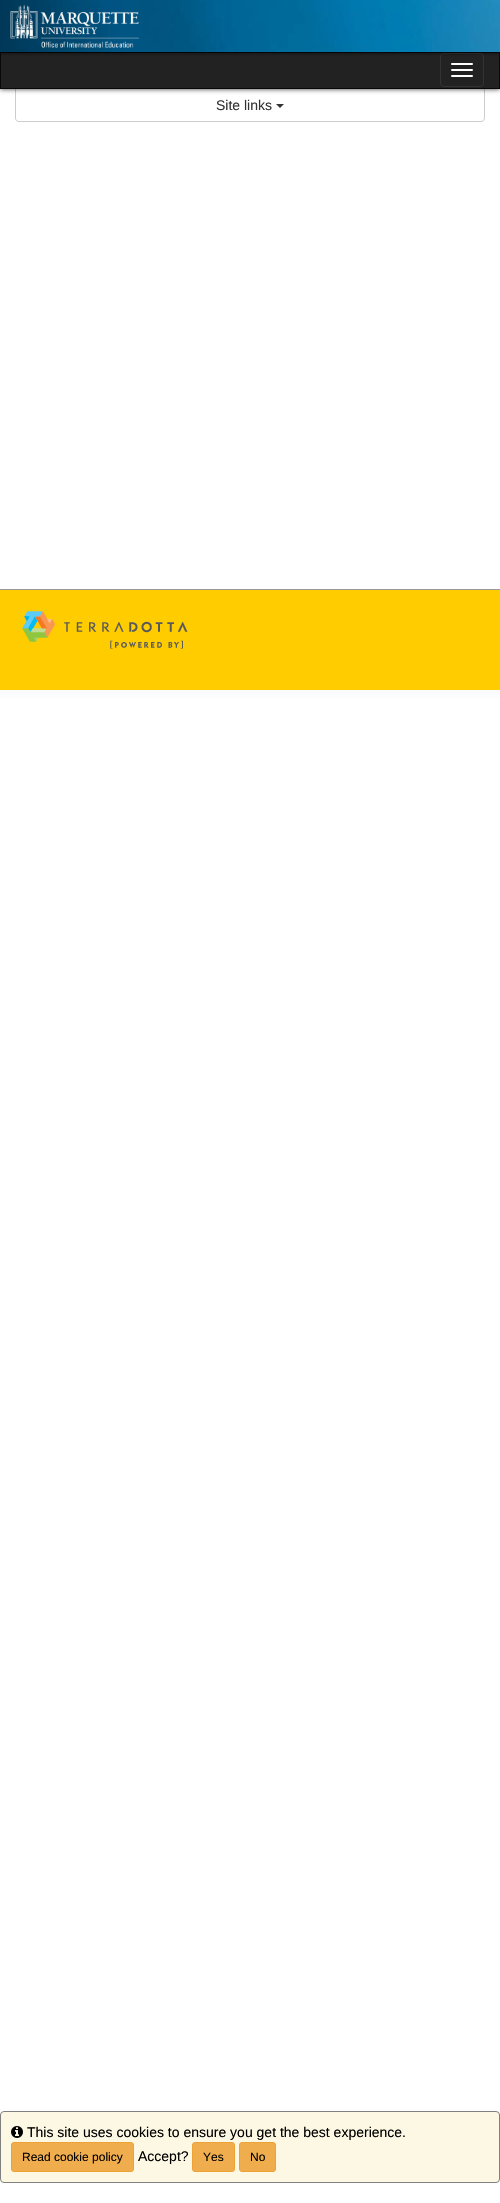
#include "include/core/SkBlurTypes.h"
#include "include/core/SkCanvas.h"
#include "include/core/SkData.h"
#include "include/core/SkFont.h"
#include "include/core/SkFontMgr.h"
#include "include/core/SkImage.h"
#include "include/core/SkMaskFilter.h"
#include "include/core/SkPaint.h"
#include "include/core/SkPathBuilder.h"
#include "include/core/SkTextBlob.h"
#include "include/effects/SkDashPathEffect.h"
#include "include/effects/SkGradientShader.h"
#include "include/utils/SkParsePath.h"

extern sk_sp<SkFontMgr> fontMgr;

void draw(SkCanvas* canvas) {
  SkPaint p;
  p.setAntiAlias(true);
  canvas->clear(SK_ColorWHITE);
  {
    const SkColor colors[] = {SkColorSetRGB(0, 52, 103), SK_ColorWHITE};
    const float stops[] = {0.02f, 0.32f};
    const SkPoint ends[] = {{250, 0}, {250, 2203}};
    p.setShader(SkGradientShader::MakeLinear(ends, colors, stops, 2, SkTileMode::kClamp));
    p.setAlpha(255);
  }
  canvas->drawRect(SkRect::MakeLTRB(0, 690, 500, 699), p);
  p.setShader(nullptr);
  p.setColor(SkColorSetRGB(204, 204, 204));
  canvas->drawPath(SkPathBuilder(SkPathFillType::kEvenOdd).moveTo(15, 89).lineTo(485, 89).lineTo(485, 118).cubicTo(485, 120, 483, 122, 481, 122).lineTo(19, 122).cubicTo(17, 122, 15, 120, 15, 118).close().moveTo(16, 89).lineTo(484, 89).lineTo(484, 118).cubicTo(484, 120, 483, 121, 481, 121).lineTo(19, 121).cubicTo(17, 121, 16, 120, 16, 118).close().detach(), p);
  p.setColor(SkColorSetARGB(204, 0, 0, 0));
  p.setMaskFilter(SkMaskFilter::MakeBlur(kNormal_SkBlurStyle, 2.5f));
  canvas->drawRect(SkRect::MakeLTRB(0, 52, 500, 89), p);
  p.setMaskFilter(nullptr);
  p.setColor(SkColorSetRGB(34, 34, 34));
  canvas->drawRect(SkRect::MakeLTRB(0.5f, 52.5f, 499.5f, 88.5f), p);
  p.setStyle(SkPaint::kStroke_Style);
  p.setStrokeWidth(1);
  p.setColor(SkColorSetRGB(8, 8, 8));
  canvas->drawRect(SkRect::MakeLTRB(0.5f, 52.5f, 499.5f, 88.5f), p);
  p.setColor(SkColorSetRGB(51, 51, 51));
  canvas->drawRoundRect(SkRect::MakeLTRB(440.5f, 53.5f, 483.5f, 86.5f), 3.5f, 3.5f, p);
  p.setStyle(SkPaint::kFill_Style);
  p.setColor(SkColorSetARGB(204, 0, 0, 0));
  p.setMaskFilter(SkMaskFilter::MakeBlur(kNormal_SkBlurStyle, 2.5f));
  canvas->drawRect(SkRect::MakeLTRB(0, 0, 500, 52), p);
  p.setMaskFilter(nullptr);
  canvas->drawImageRect(SkImages::DeferredFromEncodedData(SkData::MakeFromFileName("images/1.png")), SkRect::MakeLTRB(0, 0, 500, 52), SkSamplingOptions());
  p.setColor(SK_ColorWHITE);
  canvas->drawRoundRect(SkRect::MakeLTRB(451, 63, 473, 65), 1, 1, p);
  canvas->drawRoundRect(SkRect::MakeLTRB(451, 69, 473, 71), 1, 1, p);
  canvas->drawRoundRect(SkRect::MakeLTRB(451, 75, 473, 77), 1, 1, p);
  p.setColor(SkColorSetRGB(51, 51, 51));
  canvas->drawPath(SkPathBuilder().moveTo(276, 104).lineTo(284, 104).lineTo(280, 108).close().detach(), p);
  p.setColor(SkColorSetRGB(255, 204, 0));
  canvas->drawRect(SkRect::MakeLTRB(0, 590, 500, 690), p);
  p.setColor(SkColorSetRGB(153, 153, 153));
  canvas->drawRect(SkRect::MakeLTRB(0, 589, 500, 590), p);
  canvas->drawImageRect(SkImages::DeferredFromEncodedData(SkData::MakeFromFileName("images/2.png")), SkRect::MakeLTRB(22, 611, 188, 649), SkSamplingOptions());
  p.setColor(SkColorSetRGB(252, 248, 227));
  canvas->drawRoundRect(SkRect::MakeLTRB(0.5f, 2111.5f, 499.5f, 2182.5f), 3.5f, 3.5f, p);
  p.setStyle(SkPaint::kStroke_Style);
  p.setColor(SkColorSetRGB(128, 128, 128));
  canvas->drawRoundRect(SkRect::MakeLTRB(0.5f, 2111.5f, 499.5f, 2182.5f), 3.5f, 3.5f, p);
  canvas->drawImageRect(SkImages::DeferredFromEncodedData(SkData::MakeFromFileName("images/3.png")), SkRect::MakeLTRB(11, 2126, 23, 2138), SkSamplingOptions());
  p.setStyle(SkPaint::kFill_Style);
  p.setColor(SkColorSetRGB(240, 173, 78));
  canvas->drawRoundRect(SkRect::MakeLTRB(11.5f, 2142.5f, 133.5f, 2171.5f), 2.5f, 2.5f, p);
  p.setStyle(SkPaint::kStroke_Style);
  p.setColor(SkColorSetRGB(238, 162, 54));
  canvas->drawRoundRect(SkRect::MakeLTRB(11.5f, 2142.5f, 133.5f, 2171.5f), 2.5f, 2.5f, p);
  p.setStyle(SkPaint::kFill_Style);
  p.setColor(SkColorSetRGB(240, 173, 78));
  canvas->drawRoundRect(SkRect::MakeLTRB(192.5f, 2142.5f, 234.5f, 2171.5f), 2.5f, 2.5f, p);
  p.setStyle(SkPaint::kStroke_Style);
  p.setColor(SkColorSetRGB(238, 162, 54));
  canvas->drawRoundRect(SkRect::MakeLTRB(192.5f, 2142.5f, 234.5f, 2171.5f), 2.5f, 2.5f, p);
  p.setStyle(SkPaint::kFill_Style);
  p.setColor(SkColorSetRGB(240, 173, 78));
  canvas->drawRoundRect(SkRect::MakeLTRB(239.5f, 2142.5f, 275.5f, 2171.5f), 2.5f, 2.5f, p);
  p.setStyle(SkPaint::kStroke_Style);
  p.setColor(SkColorSetRGB(238, 162, 54));
  canvas->drawRoundRect(SkRect::MakeLTRB(239.5f, 2142.5f, 275.5f, 2171.5f), 2.5f, 2.5f, p);
  SkFont font1(fontMgr->matchFamilyStyle("Liberation Sans", SkFontStyle::Normal()), 14);
  font1.setSubpixel(true);
  p.setStyle(SkPaint::kFill_Style);
  p.setColor(SkColorSetRGB(51, 51, 51));
  canvas->drawString("Site links", 216, 110, font1, p);
  p.setColor(SK_ColorBLACK);
  canvas->drawString("This site uses cookies to ensure you get the best experience.", 27, 2137, font1, p);
  SkFont font2(fontMgr->matchFamilyStyle("Liberation Sans", SkFontStyle::Normal()), 12);
  font2.setSubpixel(true);
  canvas->drawString("Read cookie policy", 22, 2161, font2, p);
  canvas->drawString("Accept?", 138, 2161, font1, p);
  canvas->drawString("Yes", 203, 2161, font2, p);
  canvas->drawString("No", 250, 2161, font2, p);
}
